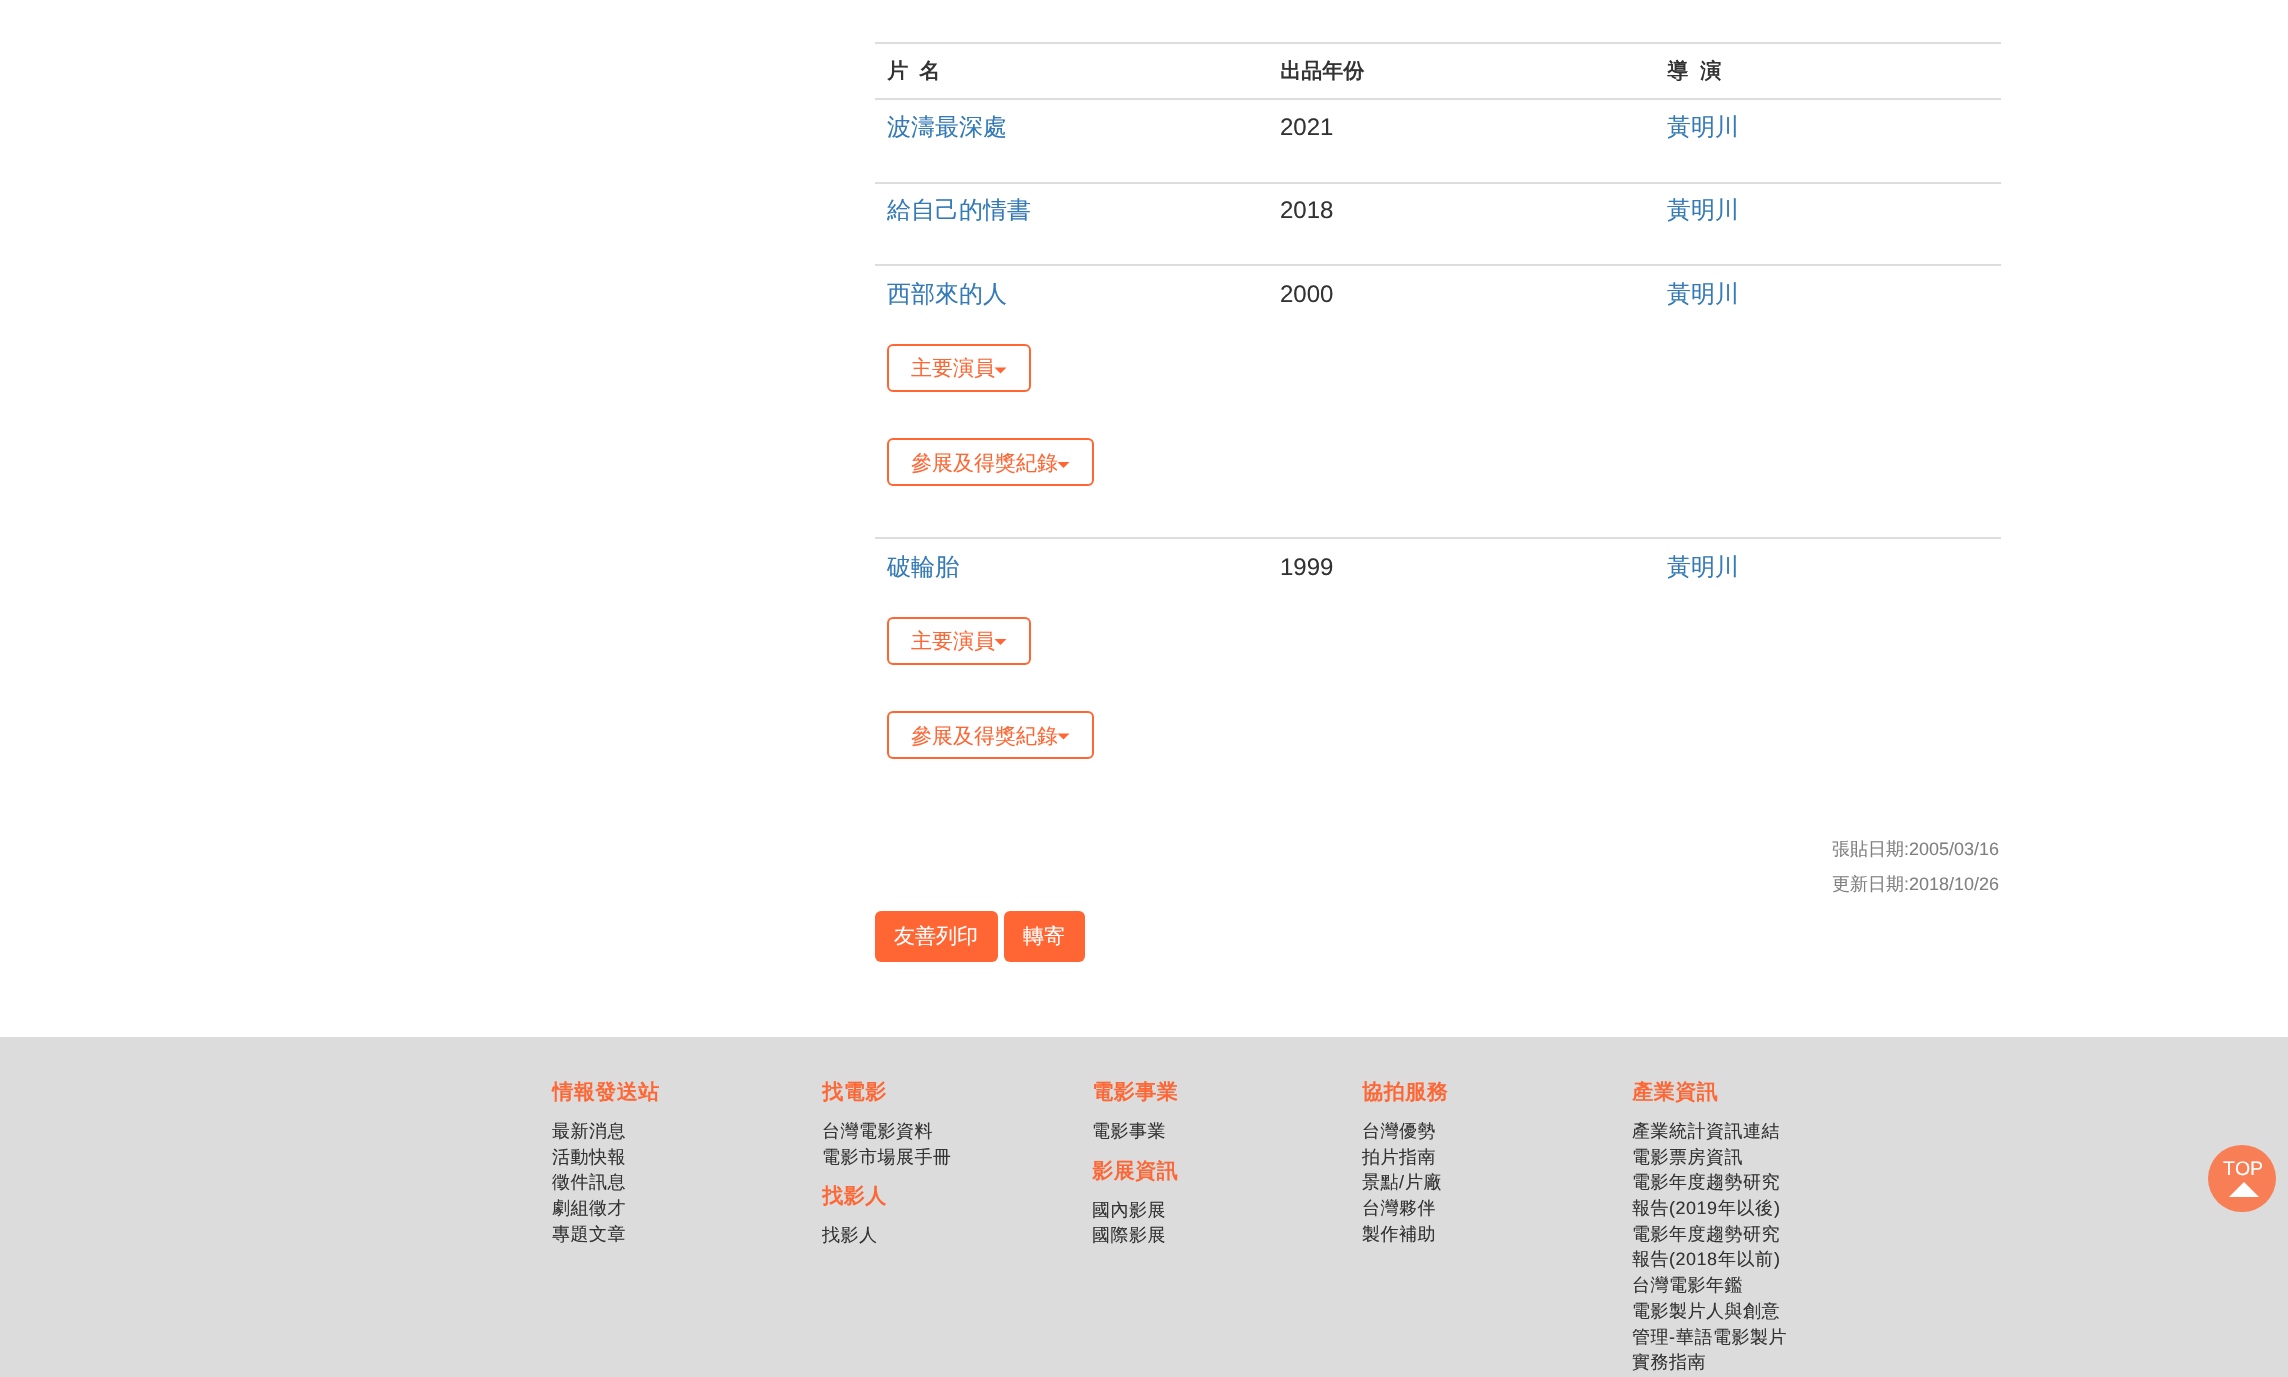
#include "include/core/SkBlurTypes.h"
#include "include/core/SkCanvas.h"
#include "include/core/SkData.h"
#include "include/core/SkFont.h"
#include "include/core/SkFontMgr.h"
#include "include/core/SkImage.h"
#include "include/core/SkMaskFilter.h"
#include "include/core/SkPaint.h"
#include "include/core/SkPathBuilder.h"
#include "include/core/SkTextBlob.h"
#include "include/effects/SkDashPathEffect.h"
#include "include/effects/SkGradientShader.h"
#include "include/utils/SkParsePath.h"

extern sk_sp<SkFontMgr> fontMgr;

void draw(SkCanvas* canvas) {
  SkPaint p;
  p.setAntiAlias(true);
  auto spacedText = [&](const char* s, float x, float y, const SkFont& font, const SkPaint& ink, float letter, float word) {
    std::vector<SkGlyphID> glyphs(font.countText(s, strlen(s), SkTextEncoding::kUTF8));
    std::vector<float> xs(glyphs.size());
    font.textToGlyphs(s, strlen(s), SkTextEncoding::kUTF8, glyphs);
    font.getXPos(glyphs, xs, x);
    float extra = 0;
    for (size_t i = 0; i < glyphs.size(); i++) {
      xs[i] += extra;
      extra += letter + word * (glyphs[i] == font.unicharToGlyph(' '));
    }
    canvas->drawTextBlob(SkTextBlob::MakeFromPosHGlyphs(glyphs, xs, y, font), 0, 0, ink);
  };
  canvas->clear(SK_ColorWHITE);
  p.setColor(SkColorSetRGB(221, 221, 221));
  canvas->drawRect(SkRect::MakeLTRB(875, 42, 2001, 44), p);
  canvas->drawRect(SkRect::MakeLTRB(875, 98, 2001, 100), p);
  canvas->drawRect(SkRect::MakeLTRB(875, 182, 2001, 184), p);
  canvas->drawRect(SkRect::MakeLTRB(875, 264, 2001, 266), p);
  p.setStyle(SkPaint::kStroke_Style);
  p.setStrokeWidth(2);
  p.setColor(SkColorSetRGB(255, 102, 51));
  canvas->drawRoundRect(SkRect::MakeLTRB(888, 345, 1030, 391), 5, 5, p);
  p.setStyle(SkPaint::kFill_Style);
  canvas->drawPath(SkPathBuilder().moveTo(994.5f, 367.5f).lineTo(1006.5f, 367.5f).lineTo(1000.5f, 373.5f).close().detach(), p);
  p.setStyle(SkPaint::kStroke_Style);
  canvas->drawRoundRect(SkRect::MakeLTRB(888, 439, 1093, 485), 5, 5, p);
  p.setStyle(SkPaint::kFill_Style);
  canvas->drawPath(SkPathBuilder().moveTo(1057.5f, 462).lineTo(1069.5f, 462).lineTo(1063.5f, 468).close().detach(), p);
  p.setColor(SkColorSetRGB(221, 221, 221));
  canvas->drawRect(SkRect::MakeLTRB(875, 537, 2001, 539), p);
  p.setStyle(SkPaint::kStroke_Style);
  p.setColor(SkColorSetRGB(255, 102, 51));
  canvas->drawRoundRect(SkRect::MakeLTRB(888, 618, 1030, 664), 5, 5, p);
  p.setStyle(SkPaint::kFill_Style);
  canvas->drawPath(SkPathBuilder().moveTo(994.5f, 639).lineTo(1006.5f, 639).lineTo(1000.5f, 645).close().detach(), p);
  p.setStyle(SkPaint::kStroke_Style);
  canvas->drawRoundRect(SkRect::MakeLTRB(888, 712, 1093, 758), 5, 5, p);
  p.setStyle(SkPaint::kFill_Style);
  canvas->drawPath(SkPathBuilder().moveTo(1057.5f, 733.5f).lineTo(1069.5f, 733.5f).lineTo(1063.5f, 739.5f).close().detach(), p);
  canvas->drawRoundRect(SkRect::MakeLTRB(875, 911, 998, 962), 6, 6, p);
  canvas->drawRoundRect(SkRect::MakeLTRB(1004, 911, 1085, 962), 6, 6, p);
  p.setColor(SkColorSetRGB(220, 220, 220));
  canvas->drawRect(SkRect::MakeLTRB(0, 1037, 2288, 1377), p);
  p.setColor(SkColorSetRGB(248, 126, 85));
  canvas->drawRoundRect(SkRect::MakeLTRB(2208, 1145, 2276, 1212), 33.5f, 33.5f, p);
  p.setColor(SK_ColorWHITE);
  canvas->drawPath(SkPathBuilder().moveTo(2259, 1197).lineTo(2229, 1197).lineTo(2244, 1182).close().detach(), p);
  SkFont font1(fontMgr->matchFamilyStyle("WenQuanYi Zen Hei", SkFontStyle::Bold()), 21);
  font1.setSubpixel(true);
  p.setColor(SkColorSetRGB(51, 51, 51));
  canvas->drawString("片", 887, 78, font1, p);
  canvas->drawString("名", 919, 78, font1, p);
  canvas->drawString("出品年份", 1280, 78, font1, p);
  canvas->drawString("導", 1667, 78, font1, p);
  canvas->drawString("演", 1700, 78, font1, p);
  SkFont font2(fontMgr->matchFamilyStyle("WenQuanYi Zen Hei", SkFontStyle(500, SkFontStyle::kNormal_Width, SkFontStyle::kUpright_Slant)), 24);
  font2.setSubpixel(true);
  p.setColor(SkColorSetRGB(51, 122, 183));
  canvas->drawString("波濤最深處", 887, 135, font2, p);
  SkFont font3(fontMgr->matchFamilyStyle("Liberation Sans", SkFontStyle::Normal()), 24);
  font3.setSubpixel(true);
  p.setColor(SkColorSetRGB(51, 51, 51));
  canvas->drawString("2021", 1280, 135, font3, p);
  p.setColor(SkColorSetRGB(51, 122, 183));
  canvas->drawString("黃明川", 1667, 135, font2, p);
  canvas->drawString("給自己的情書", 887, 218, font2, p);
  p.setColor(SkColorSetRGB(51, 51, 51));
  canvas->drawString("2018", 1280, 218, font3, p);
  p.setColor(SkColorSetRGB(51, 122, 183));
  canvas->drawString("黃明川", 1667, 218, font2, p);
  canvas->drawString("西部來的人", 887, 302, font2, p);
  p.setColor(SkColorSetRGB(51, 51, 51));
  canvas->drawString("2000", 1280, 302, font3, p);
  p.setColor(SkColorSetRGB(51, 122, 183));
  canvas->drawString("黃明川", 1667, 302, font2, p);
  SkFont font4(fontMgr->matchFamilyStyle("WenQuanYi Zen Hei", SkFontStyle(500, SkFontStyle::kNormal_Width, SkFontStyle::kUpright_Slant)), 21);
  font4.setSubpixel(true);
  p.setColor(SkColorSetRGB(255, 102, 51));
  canvas->drawString("主要演員", 911, 375, font4, p);
  canvas->drawString("參展及得獎紀錄", 911, 470, font4, p);
  p.setColor(SkColorSetRGB(51, 122, 183));
  canvas->drawString("破輪胎", 887, 575, font2, p);
  p.setColor(SkColorSetRGB(51, 51, 51));
  canvas->drawString("1999", 1280, 575, font3, p);
  p.setColor(SkColorSetRGB(51, 122, 183));
  canvas->drawString("黃明川", 1667, 575, font2, p);
  p.setColor(SkColorSetRGB(255, 102, 51));
  canvas->drawString("主要演員", 911, 648, font4, p);
  canvas->drawString("參展及得獎紀錄", 911, 743, font4, p);
  SkFont font5(fontMgr->matchFamilyStyle("WenQuanYi Zen Hei", SkFontStyle(500, SkFontStyle::kNormal_Width, SkFontStyle::kUpright_Slant)), 18);
  font5.setSubpixel(true);
  p.setColor(SkColorSetRGB(128, 128, 128));
  canvas->drawString("張貼日期", 1832, 855, font5, p);
  SkFont font6(fontMgr->matchFamilyStyle("Liberation Sans", SkFontStyle::Normal()), 18);
  font6.setSubpixel(true);
  canvas->drawString(":2005/03/16", 1904, 855, font6, p);
  canvas->drawString("更新日期", 1832, 890, font5, p);
  canvas->drawString(":2018/10/26", 1904, 890, font6, p);
  p.setColor(SK_ColorWHITE);
  canvas->drawString("友善列印", 894, 943, font4, p);
  canvas->drawString("轉寄", 1023, 943, font4, p);
  p.setColor(SkColorSetRGB(255, 102, 51));
  spacedText("情報發送站", 552, 1099, font1, p, 0.5f, 0);
  p.setColor(SkColorSetRGB(51, 51, 51));
  spacedText("最新消息", 552, 1137, font5, p, 0.5f, 0);
  spacedText("活動快報", 552, 1163, font5, p, 0.5f, 0);
  spacedText("徵件訊息", 552, 1188, font5, p, 0.5f, 0);
  spacedText("劇組徵才", 552, 1214, font5, p, 0.5f, 0);
  spacedText("專題文章", 552, 1240, font5, p, 0.5f, 0);
  p.setColor(SkColorSetRGB(255, 102, 51));
  spacedText("找電影", 822, 1099, font1, p, 0.5f, 0);
  p.setColor(SkColorSetRGB(51, 51, 51));
  spacedText("台灣電影資料", 822, 1137, font5, p, 0.5f, 0);
  spacedText("電影市場展手冊", 822, 1163, font5, p, 0.5f, 0);
  p.setColor(SkColorSetRGB(255, 102, 51));
  spacedText("找影人", 822, 1203, font1, p, 0.5f, 0);
  p.setColor(SkColorSetRGB(51, 51, 51));
  spacedText("找影人", 822, 1241, font5, p, 0.5f, 0);
  p.setColor(SkColorSetRGB(255, 102, 51));
  spacedText("電影事業", 1092, 1099, font1, p, 0.5f, 0);
  p.setColor(SkColorSetRGB(51, 51, 51));
  spacedText("電影事業", 1092, 1137, font5, p, 0.5f, 0);
  p.setColor(SkColorSetRGB(255, 102, 51));
  spacedText("影展資訊", 1092, 1178, font1, p, 0.5f, 0);
  p.setColor(SkColorSetRGB(51, 51, 51));
  spacedText("國內影展", 1092, 1216, font5, p, 0.5f, 0);
  spacedText("國際影展", 1092, 1241, font5, p, 0.5f, 0);
  p.setColor(SkColorSetRGB(255, 102, 51));
  spacedText("協拍服務", 1362, 1099, font1, p, 0.5f, 0);
  p.setColor(SkColorSetRGB(51, 51, 51));
  spacedText("台灣優勢", 1362, 1137, font5, p, 0.5f, 0);
  spacedText("拍片指南", 1362, 1163, font5, p, 0.5f, 0);
  spacedText("景點", 1362, 1188, font5, p, 0.5f, 0);
  spacedText("/", 1399, 1188, font6, p, 0.5f, 0);
  spacedText("片廠", 1405, 1188, font5, p, 0.5f, 0);
  spacedText("台灣夥伴", 1362, 1214, font5, p, 0.5f, 0);
  spacedText("製作補助", 1362, 1240, font5, p, 0.5f, 0);
  p.setColor(SkColorSetRGB(255, 102, 51));
  spacedText("產業資訊", 1632, 1099, font1, p, 0.5f, 0);
  p.setColor(SkColorSetRGB(51, 51, 51));
  spacedText("產業統計資訊連結", 1632, 1137, font5, p, 0.5f, 0);
  spacedText("電影票房資訊", 1632, 1163, font5, p, 0.5f, 0);
  spacedText("電影年度趨勢研究", 1632, 1188, font5, p, 0.5f, 0);
  spacedText("報告", 1632, 1214, font5, p, 0.5f, 0);
  spacedText("(2019", 1669, 1214, font6, p, 0.5f, 0);
  spacedText("年以後", 1718, 1214, font5, p, 0.5f, 0);
  spacedText(")", 1774, 1214, font6, p, 0.5f, 0);
  spacedText("電影年度趨勢研究", 1632, 1240, font5, p, 0.5f, 0);
  spacedText("報告", 1632, 1265, font5, p, 0.5f, 0);
  spacedText("(2018", 1669, 1265, font6, p, 0.5f, 0);
  spacedText("年以前", 1718, 1265, font5, p, 0.5f, 0);
  spacedText(")", 1774, 1265, font6, p, 0.5f, 0);
  spacedText("台灣電影年鑑", 1632, 1291, font5, p, 0.5f, 0);
  spacedText("電影製片人與創意", 1632, 1317, font5, p, 0.5f, 0);
  spacedText("管理", 1632, 1343, font5, p, 0.5f, 0);
  spacedText("-", 1669, 1343, font6, p, 0.5f, 0);
  spacedText("華語電影製片", 1676, 1343, font5, p, 0.5f, 0);
  spacedText("實務指南", 1632, 1368, font5, p, 0.5f, 0);
  SkFont font7(fontMgr->matchFamilyStyle("Liberation Sans", SkFontStyle::Normal()), 19.5f);
  font7.setSubpixel(true);
  p.setColor(SK_ColorWHITE);
  canvas->drawString("TOP", 2223, 1175, font7, p);
}
